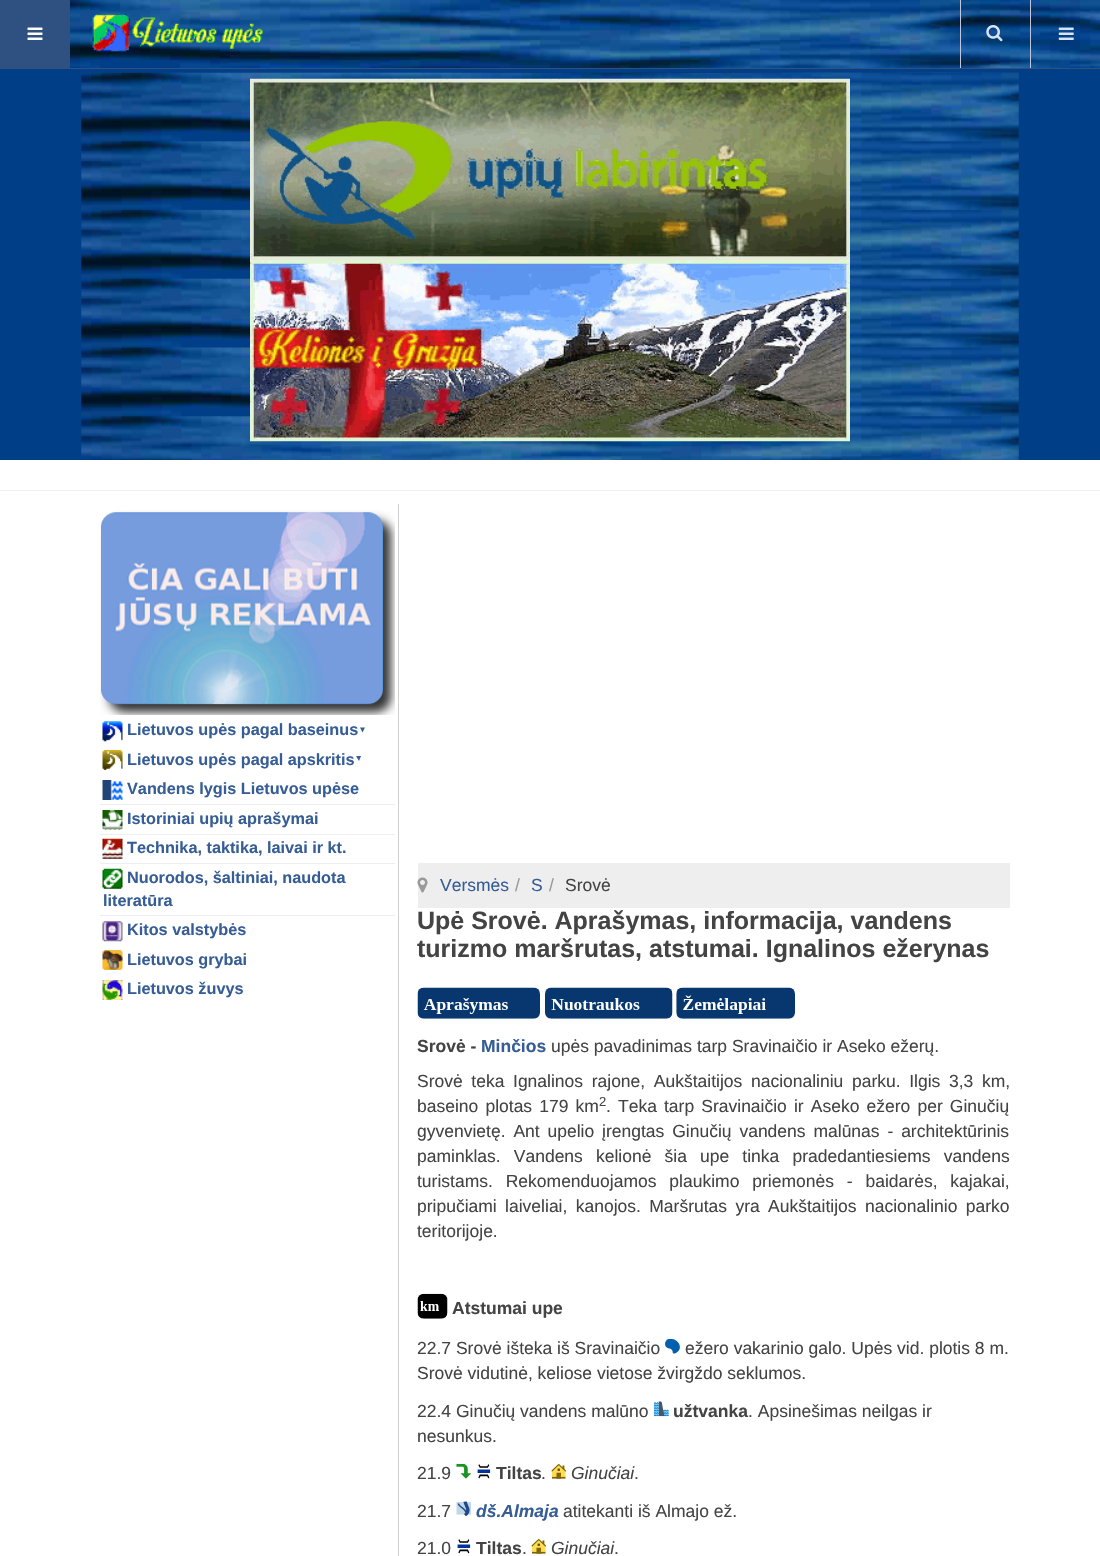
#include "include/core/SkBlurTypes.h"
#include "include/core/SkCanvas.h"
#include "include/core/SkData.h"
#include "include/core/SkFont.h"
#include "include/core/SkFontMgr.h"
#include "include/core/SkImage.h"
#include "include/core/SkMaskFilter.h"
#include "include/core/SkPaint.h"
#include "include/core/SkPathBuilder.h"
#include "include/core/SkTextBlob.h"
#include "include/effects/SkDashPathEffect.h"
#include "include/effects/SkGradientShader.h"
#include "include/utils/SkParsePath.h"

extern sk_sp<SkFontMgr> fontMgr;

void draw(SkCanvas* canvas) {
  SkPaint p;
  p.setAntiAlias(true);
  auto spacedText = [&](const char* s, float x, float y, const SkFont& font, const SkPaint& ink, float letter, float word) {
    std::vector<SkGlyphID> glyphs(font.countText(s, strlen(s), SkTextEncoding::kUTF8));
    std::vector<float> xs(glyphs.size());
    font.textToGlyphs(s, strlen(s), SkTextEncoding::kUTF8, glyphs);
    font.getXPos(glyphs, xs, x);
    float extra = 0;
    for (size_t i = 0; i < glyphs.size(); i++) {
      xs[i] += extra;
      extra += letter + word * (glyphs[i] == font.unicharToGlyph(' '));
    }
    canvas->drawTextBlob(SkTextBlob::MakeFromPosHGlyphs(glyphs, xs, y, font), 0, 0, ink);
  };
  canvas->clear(SK_ColorWHITE);
  canvas->drawImageRect(SkImages::DeferredFromEncodedData(SkData::MakeFromFileName("images/1.png")), SkRect::MakeLTRB(70, 0, 1100, 68), SkSamplingOptions());
  p.setColor(SkColorSetRGB(47, 81, 130));
  canvas->drawRect(SkRect::MakeLTRB(70, 68, 1100, 69), p);
  canvas->drawRect(SkRect::MakeLTRB(0, 0, 70, 69), p);
  canvas->drawImageRect(SkImages::DeferredFromEncodedData(SkData::MakeFromFileName("images/2.png")), SkRect::MakeLTRB(92, 13, 263, 52), SkSamplingOptions());
  p.setColor(SkColorSetRGB(191, 198, 224));
  canvas->drawRect(SkRect::MakeLTRB(1030, 0, 1031, 68), p);
  canvas->drawRect(SkRect::MakeLTRB(960, 0, 961, 68), p);
  p.setColor(SkColorSetARGB(18, 0, 0, 0));
  canvas->drawRect(SkRect::MakeLTRB(961, 0, 1030, 1), p);
  canvas->drawImageRect(SkImages::DeferredFromEncodedData(SkData::MakeFromFileName("images/3.png")), SkRect::MakeLTRB(986, 25, 1003, 42), SkSamplingOptions());
  canvas->drawImageRect(SkImages::DeferredFromEncodedData(SkData::MakeFromFileName("images/4.png")), SkRect::MakeLTRB(1058, 27, 1074, 40), SkSamplingOptions());
  canvas->drawImageRect(SkImages::DeferredFromEncodedData(SkData::MakeFromFileName("images/5.png")), SkRect::MakeLTRB(27, 27, 43, 40), SkSamplingOptions());
  p.setColor(SkColorSetRGB(0, 63, 135));
  canvas->drawRect(SkRect::MakeLTRB(0, 69, 1100, 460), p);
  canvas->drawImageRect(SkImages::DeferredFromEncodedData(SkData::MakeFromFileName("images/6.png")), SkRect::MakeLTRB(81, 72, 1019, 460), SkSamplingOptions());
  canvas->drawImageRect(SkImages::DeferredFromEncodedData(SkData::MakeFromFileName("images/7.png")), SkRect::MakeLTRB(250, 78, 850, 260), SkSamplingOptions());
  canvas->drawImageRect(SkImages::DeferredFromEncodedData(SkData::MakeFromFileName("images/8.png")), SkRect::MakeLTRB(250, 260, 850, 442), SkSamplingOptions());
  p.setColor(SkColorSetRGB(238, 238, 238));
  canvas->drawRect(SkRect::MakeLTRB(0, 490, 1100, 491), p);
  canvas->drawImageRect(SkImages::DeferredFromEncodedData(SkData::MakeFromFileName("images/9.png")), SkRect::MakeLTRB(100, 510, 395, 715), SkSamplingOptions());
  canvas->drawImageRect(SkImages::DeferredFromEncodedData(SkData::MakeFromFileName("images/10.png")), SkRect::MakeLTRB(102, 721, 123, 742), SkSamplingOptions());
  p.setColor(SkColorSetRGB(54, 93, 149));
  canvas->drawPath(SkPathBuilder().moveTo(360, 727.5f).lineTo(365, 727.5f).lineTo(362.5f, 732.5f).close().detach(), p);
  canvas->drawImageRect(SkImages::DeferredFromEncodedData(SkData::MakeFromFileName("images/11.png")), SkRect::MakeLTRB(102, 750, 123, 770), SkSamplingOptions());
  canvas->drawPath(SkPathBuilder().moveTo(356, 756).lineTo(361, 756).lineTo(359, 761).close().detach(), p);
  canvas->drawImageRect(SkImages::DeferredFromEncodedData(SkData::MakeFromFileName("images/12.png")), SkRect::MakeLTRB(102, 780, 123, 800), SkSamplingOptions());
  p.setColor(SkColorSetRGB(238, 238, 238));
  canvas->drawRect(SkRect::MakeLTRB(100, 804, 395, 805), p);
  canvas->drawImageRect(SkImages::DeferredFromEncodedData(SkData::MakeFromFileName("images/13.png")), SkRect::MakeLTRB(102, 810, 123, 830), SkSamplingOptions());
  canvas->drawRect(SkRect::MakeLTRB(100, 834, 395, 835), p);
  canvas->drawImageRect(SkImages::DeferredFromEncodedData(SkData::MakeFromFileName("images/14.png")), SkRect::MakeLTRB(102, 838, 123, 859), SkSamplingOptions());
  canvas->drawRect(SkRect::MakeLTRB(100, 863, 395, 864), p);
  canvas->drawImageRect(SkImages::DeferredFromEncodedData(SkData::MakeFromFileName("images/15.png")), SkRect::MakeLTRB(102, 868, 123, 889), SkSamplingOptions());
  canvas->drawRect(SkRect::MakeLTRB(100, 915, 395, 916), p);
  canvas->drawImageRect(SkImages::DeferredFromEncodedData(SkData::MakeFromFileName("images/16.png")), SkRect::MakeLTRB(102, 921, 123, 942), SkSamplingOptions());
  canvas->drawImageRect(SkImages::DeferredFromEncodedData(SkData::MakeFromFileName("images/17.png")), SkRect::MakeLTRB(102, 950, 123, 970), SkSamplingOptions());
  canvas->drawImageRect(SkImages::DeferredFromEncodedData(SkData::MakeFromFileName("images/18.png")), SkRect::MakeLTRB(102, 980, 123, 1000), SkSamplingOptions());
  p.setColor(SkColorSetRGB(207, 207, 207));
  canvas->drawRect(SkRect::MakeLTRB(398, 504, 399, 1556), p);
  p.setColor(SkColorSetRGB(238, 238, 238));
  canvas->drawRect(SkRect::MakeLTRB(418, 863, 1010, 908), p);
  canvas->drawImageRect(SkImages::DeferredFromEncodedData(SkData::MakeFromFileName("images/19.png")), SkRect::MakeLTRB(417, 877, 428, 893), SkSamplingOptions());
  canvas->drawImageRect(SkImages::DeferredFromEncodedData(SkData::MakeFromFileName("images/20.png")), SkRect::MakeLTRB(417, 987, 540, 1019), SkSamplingOptions());
  canvas->drawImageRect(SkImages::DeferredFromEncodedData(SkData::MakeFromFileName("images/21.png")), SkRect::MakeLTRB(545, 987, 673, 1019), SkSamplingOptions());
  canvas->drawImageRect(SkImages::DeferredFromEncodedData(SkData::MakeFromFileName("images/22.png")), SkRect::MakeLTRB(676, 987, 795, 1019), SkSamplingOptions());
  canvas->drawImageRect(SkImages::DeferredFromEncodedData(SkData::MakeFromFileName("images/23.png")), SkRect::MakeLTRB(417, 1293, 448, 1319), SkSamplingOptions());
  canvas->drawImageRect(SkImages::DeferredFromEncodedData(SkData::MakeFromFileName("images/24.png")), SkRect::MakeLTRB(665, 1338, 680, 1354), SkSamplingOptions());
  canvas->drawImageRect(SkImages::DeferredFromEncodedData(SkData::MakeFromFileName("images/25.png")), SkRect::MakeLTRB(653, 1401, 669, 1417), SkSamplingOptions());
  canvas->drawImageRect(SkImages::DeferredFromEncodedData(SkData::MakeFromFileName("images/26.png")), SkRect::MakeLTRB(456, 1463, 471, 1479), SkSamplingOptions());
  canvas->drawImageRect(SkImages::DeferredFromEncodedData(SkData::MakeFromFileName("images/27.png")), SkRect::MakeLTRB(477, 1464, 491, 1479), SkSamplingOptions());
  canvas->drawImageRect(SkImages::DeferredFromEncodedData(SkData::MakeFromFileName("images/28.png")), SkRect::MakeLTRB(551, 1464, 566, 1479), SkSamplingOptions());
  canvas->drawImageRect(SkImages::DeferredFromEncodedData(SkData::MakeFromFileName("images/29.png")), SkRect::MakeLTRB(456, 1501, 472, 1516), SkSamplingOptions());
  canvas->drawImageRect(SkImages::DeferredFromEncodedData(SkData::MakeFromFileName("images/27.png")), SkRect::MakeLTRB(457, 1539, 471, 1554), SkSamplingOptions());
  canvas->drawImageRect(SkImages::DeferredFromEncodedData(SkData::MakeFromFileName("images/28.png")), SkRect::MakeLTRB(531, 1539, 546, 1554), SkSamplingOptions());
  SkFont font1(fontMgr->matchFamilyStyle("Liberation Sans", SkFontStyle::Bold()), 16.25f);
  font1.setSubpixel(true);
  p.setColor(SkColorSetRGB(54, 93, 149));
  canvas->drawString("Lietuvos upės pagal baseinus", 127, 735, font1, p);
  canvas->drawString("Lietuvos upės pagal apskritis", 127, 765, font1, p);
  canvas->drawString("Vandens lygis Lietuvos upėse", 127, 794, font1, p);
  canvas->drawString("Istoriniai upių aprašymai", 127, 824, font1, p);
  canvas->drawString("Technika, taktika, laivai ir kt.", 127, 853, font1, p);
  canvas->drawString("Nuorodos, šaltiniai, naudota", 127, 883, font1, p);
  canvas->drawString("literatūra", 103, 906, font1, p);
  canvas->drawString("Kitos valstybės", 127, 935, font1, p);
  canvas->drawString("Lietuvos grybai", 127, 965, font1, p);
  canvas->drawString("Lietuvos žuvys", 127, 994, font1, p);
  SkFont font2(fontMgr->matchFamilyStyle("Liberation Sans", SkFontStyle::Normal()), 17.5f);
  font2.setSubpixel(true);
  canvas->drawString("Versmės", 440, 891, font2, p);
  p.setColor(SkColorSetRGB(153, 153, 153));
  canvas->drawString("/", 515, 891, font2, p);
  p.setColor(SkColorSetRGB(54, 93, 149));
  canvas->drawString("S", 531, 891, font2, p);
  p.setColor(SkColorSetRGB(153, 153, 153));
  canvas->drawString("/", 549, 891, font2, p);
  p.setColor(SkColorSetRGB(68, 68, 68));
  canvas->drawString("Srovė", 565, 891, font2, p);
  SkFont font3(fontMgr->matchFamilyStyle("Liberation Sans", SkFontStyle::Bold()), 25);
  font3.setSubpixel(true);
  canvas->drawString("Upė Srovė. Aprašymas, informacija, vandens", 417, 929, font3, p);
  canvas->drawString("turizmo maršrutas, atstumai. Ignalinos ežerynas", 417, 957, font3, p);
  SkFont font4(fontMgr->matchFamilyStyle("Liberation Sans", SkFontStyle::Bold()), 17.5f);
  font4.setSubpixel(true);
  canvas->drawString("Srovė -", 417, 1052, font4, p);
  p.setColor(SkColorSetRGB(54, 93, 149));
  canvas->drawString("Minčios", 481, 1052, font4, p);
  p.setColor(SkColorSetRGB(68, 68, 68));
  canvas->drawString("upės pavadinimas tarp Sravinaičio ir Aseko ežerų.", 551, 1052, font2, p);
  spacedText("Srovė teka Ignalinos rajone, Aukštaitijos nacionaliniu parku. Ilgis 3,3 km,", 417, 1087, font2, p, 0, 3.75f);
  spacedText("baseino plotas 179 km", 417, 1112, font2, p, 0, 2.25f);
  SkFont font5(fontMgr->matchFamilyStyle("Liberation Sans", SkFontStyle::Normal()), 13);
  font5.setSubpixel(true);
  canvas->drawString("2", 599, 1106, font5, p);
  spacedText(". Teka tarp Sravinaičio ir Aseko ežero per Ginučių", 606, 1112, font2, p, 0, 2.25f);
  spacedText("gyvenvietę. Ant upelio įrengtas Ginučių vandens malūnas - architektūrinis", 417, 1137, font2, p, 0, 3);
  spacedText("paminklas. Vandens kelionė šia upe tinka pradedantiesiems vandens", 417, 1162, font2, p, 0, 8.25f);
  spacedText("turistams. Rekomenduojamos plaukimo priemonės - baidarės, kajakai,", 417, 1187, font2, p, 0, 8);
  spacedText("pripučiami laiveliai, kanojos. Maršrutas yra Aukštaitijos nacionalinio parko", 417, 1212, font2, p, 0, 3.5f);
  canvas->drawString("teritorijoje.", 417, 1237, font2, p);
  canvas->drawString("Atstumai upe", 452, 1314, font4, p);
  canvas->drawString("22.7 Srovė išteka iš Sravinaičio", 417, 1354, font2, p);
  canvas->drawString("ežero vakarinio galo. Upės vid. plotis 8 m.", 685, 1354, font2, p);
  canvas->drawString("Srovė vidutinė, keliose vietose žvirgždo seklumos.", 417, 1379, font2, p);
  canvas->drawString("22.4 Ginučių vandens malūno", 417, 1417, font2, p);
  canvas->drawString("užtvanka", 673, 1417, font4, p);
  canvas->drawString(". Apsinešimas neilgas ir", 748, 1417, font2, p);
  canvas->drawString("nesunkus.", 417, 1442, font2, p);
  canvas->drawString("21.9", 417, 1479, font2, p);
  canvas->drawString("Tiltas", 496, 1479, font4, p);
  canvas->drawString(".", 541, 1479, font2, p);
  SkFont font6(fontMgr->matchFamilyStyle("Liberation Sans", SkFontStyle::Italic()), 17.5f);
  font6.setSubpixel(true);
  canvas->drawString("Ginučiai", 571, 1479, font6, p);
  canvas->drawString(".", 634, 1479, font2, p);
  canvas->drawString("21.7", 417, 1517, font2, p);
  SkFont font7(fontMgr->matchFamilyStyle("Liberation Sans", SkFontStyle::BoldItalic()), 17.5f);
  font7.setSubpixel(true);
  p.setColor(SkColorSetRGB(54, 93, 149));
  canvas->drawString("dš.Almaja", 476, 1517, font7, p);
  p.setColor(SkColorSetRGB(68, 68, 68));
  canvas->drawString("atitekanti iš Almajo ež.", 563, 1517, font2, p);
  canvas->drawString("21.0", 417, 1554, font2, p);
  canvas->drawString("Tiltas", 476, 1554, font4, p);
  canvas->drawString(".", 522, 1554, font2, p);
  canvas->drawString("Ginučiai", 551, 1554, font6, p);
  canvas->drawString(".", 614, 1554, font2, p);
}
